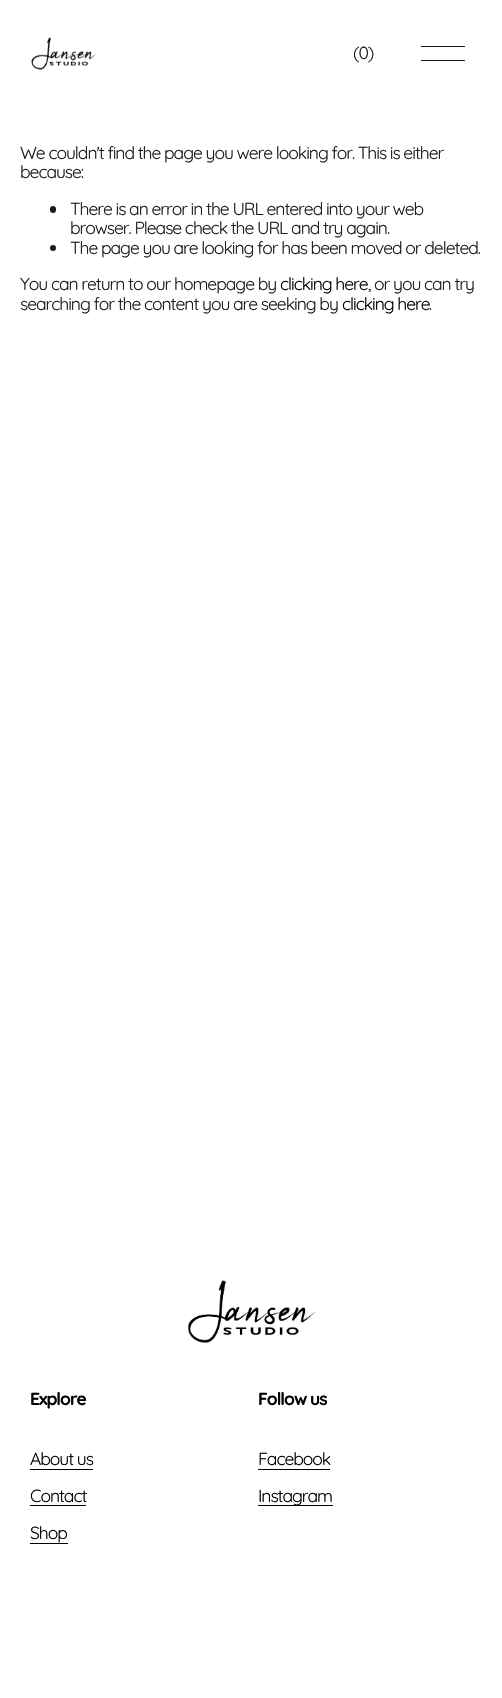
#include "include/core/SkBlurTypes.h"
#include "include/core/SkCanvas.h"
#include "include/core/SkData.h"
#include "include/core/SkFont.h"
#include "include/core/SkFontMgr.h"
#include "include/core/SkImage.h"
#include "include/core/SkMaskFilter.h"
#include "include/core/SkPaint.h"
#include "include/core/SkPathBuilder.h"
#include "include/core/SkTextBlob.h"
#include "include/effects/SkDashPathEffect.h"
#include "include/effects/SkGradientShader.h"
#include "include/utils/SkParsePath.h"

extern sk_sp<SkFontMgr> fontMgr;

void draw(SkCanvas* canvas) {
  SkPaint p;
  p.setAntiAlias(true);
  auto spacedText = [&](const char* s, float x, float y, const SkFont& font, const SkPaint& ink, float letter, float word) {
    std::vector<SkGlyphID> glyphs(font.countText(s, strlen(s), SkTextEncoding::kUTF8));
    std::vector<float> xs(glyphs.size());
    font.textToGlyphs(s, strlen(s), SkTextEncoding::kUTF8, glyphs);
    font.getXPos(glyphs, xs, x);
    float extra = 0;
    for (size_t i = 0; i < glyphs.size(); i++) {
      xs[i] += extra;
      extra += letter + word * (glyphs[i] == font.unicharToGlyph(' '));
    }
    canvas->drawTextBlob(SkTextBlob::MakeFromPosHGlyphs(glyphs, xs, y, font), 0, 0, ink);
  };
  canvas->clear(SK_ColorWHITE);
  canvas->drawImageRect(SkImages::DeferredFromEncodedData(SkData::MakeFromFileName("images/1.png")), SkRect::MakeLTRB(31, 37, 97, 70), SkSamplingOptions());
  p.setColor(SkColorSetRGB(28, 28, 28));
  canvas->drawRect(SkRect::MakeLTRB(421, 46, 465, 47), p);
  canvas->drawRect(SkRect::MakeLTRB(421, 60, 465, 61), p);
  canvas->drawRoundRect(SkRect::MakeLTRB(50, 206, 56, 213), 3, 3, p);
  canvas->drawCircle(53, 248, 3, p);
  canvas->drawImageRect(SkImages::DeferredFromEncodedData(SkData::MakeFromFileName("images/2.png")), SkRect::MakeLTRB(188, 1280, 316, 1343), SkSamplingOptions());
  p.setColor(SK_ColorBLACK);
  canvas->drawRect(SkRect::MakeLTRB(30, 1469, 93, 1470), p);
  canvas->drawRect(SkRect::MakeLTRB(30, 1505, 86, 1506), p);
  canvas->drawRect(SkRect::MakeLTRB(30, 1543, 68, 1544), p);
  canvas->drawRect(SkRect::MakeLTRB(258, 1469, 330, 1470), p);
  canvas->drawRect(SkRect::MakeLTRB(258, 1505, 333, 1506), p);
  SkFont font1(fontMgr->matchFamilyStyle("Quicksand", SkFontStyle::Normal()), 17.5f);
  font1.setSubpixel(true);
  p.setColor(SkColorSetRGB(28, 28, 28));
  spacedText("(0)", 353, 59, font1, p, -1.05f, 0);
  spacedText("We couldn't find the page you were looking for. This is either", 20, 159, font1, p, -1.05f, 0);
  spacedText("because:", 20, 178, font1, p, -1.05f, 0);
  spacedText("There is an error in the URL entered into your web", 70, 215, font1, p, -1.05f, 0);
  spacedText("browser. Please check the URL and try again.", 70, 234, font1, p, -1.05f, 0);
  spacedText("The page you are looking for has been moved or deleted.", 70, 254, font1, p, -1.05f, 0);
  spacedText("You can return to our homepage by", 20, 290, font1, p, -1.05f, 0);
  p.setColor(SK_ColorBLACK);
  spacedText("clicking here", 280, 290, font1, p, -1.05f, 0);
  p.setColor(SkColorSetRGB(28, 28, 28));
  spacedText(", or you can try", 368, 290, font1, p, -1.05f, 0);
  spacedText("searching for the content you are seeking by", 20, 310, font1, p, -1.05f, 0);
  p.setColor(SK_ColorBLACK);
  spacedText("clicking here", 342, 310, font1, p, -1.05f, 0);
  p.setColor(SkColorSetRGB(28, 28, 28));
  spacedText(".", 429, 310, font1, p, -1.05f, 0);
  SkFont font2(fontMgr->matchFamilyStyle("Quicksand", SkFontStyle::Bold()), 17.5f);
  font2.setSubpixel(true);
  p.setColor(SK_ColorBLACK);
  spacedText("Explore", 30, 1405, font2, p, -1.05f, 0);
  spacedText("Follow us", 258, 1405, font2, p, -1.05f, 0);
  spacedText("About us", 30, 1465, font1, p, -1.05f, 0);
  spacedText("Contact", 30, 1502, font1, p, -1.05f, 0);
  spacedText("Shop", 30, 1539, font1, p, -1.05f, 0);
  spacedText("Facebook", 258, 1465, font1, p, -1.05f, 0);
  spacedText("Instagram", 258, 1502, font1, p, -1.05f, 0);
}
